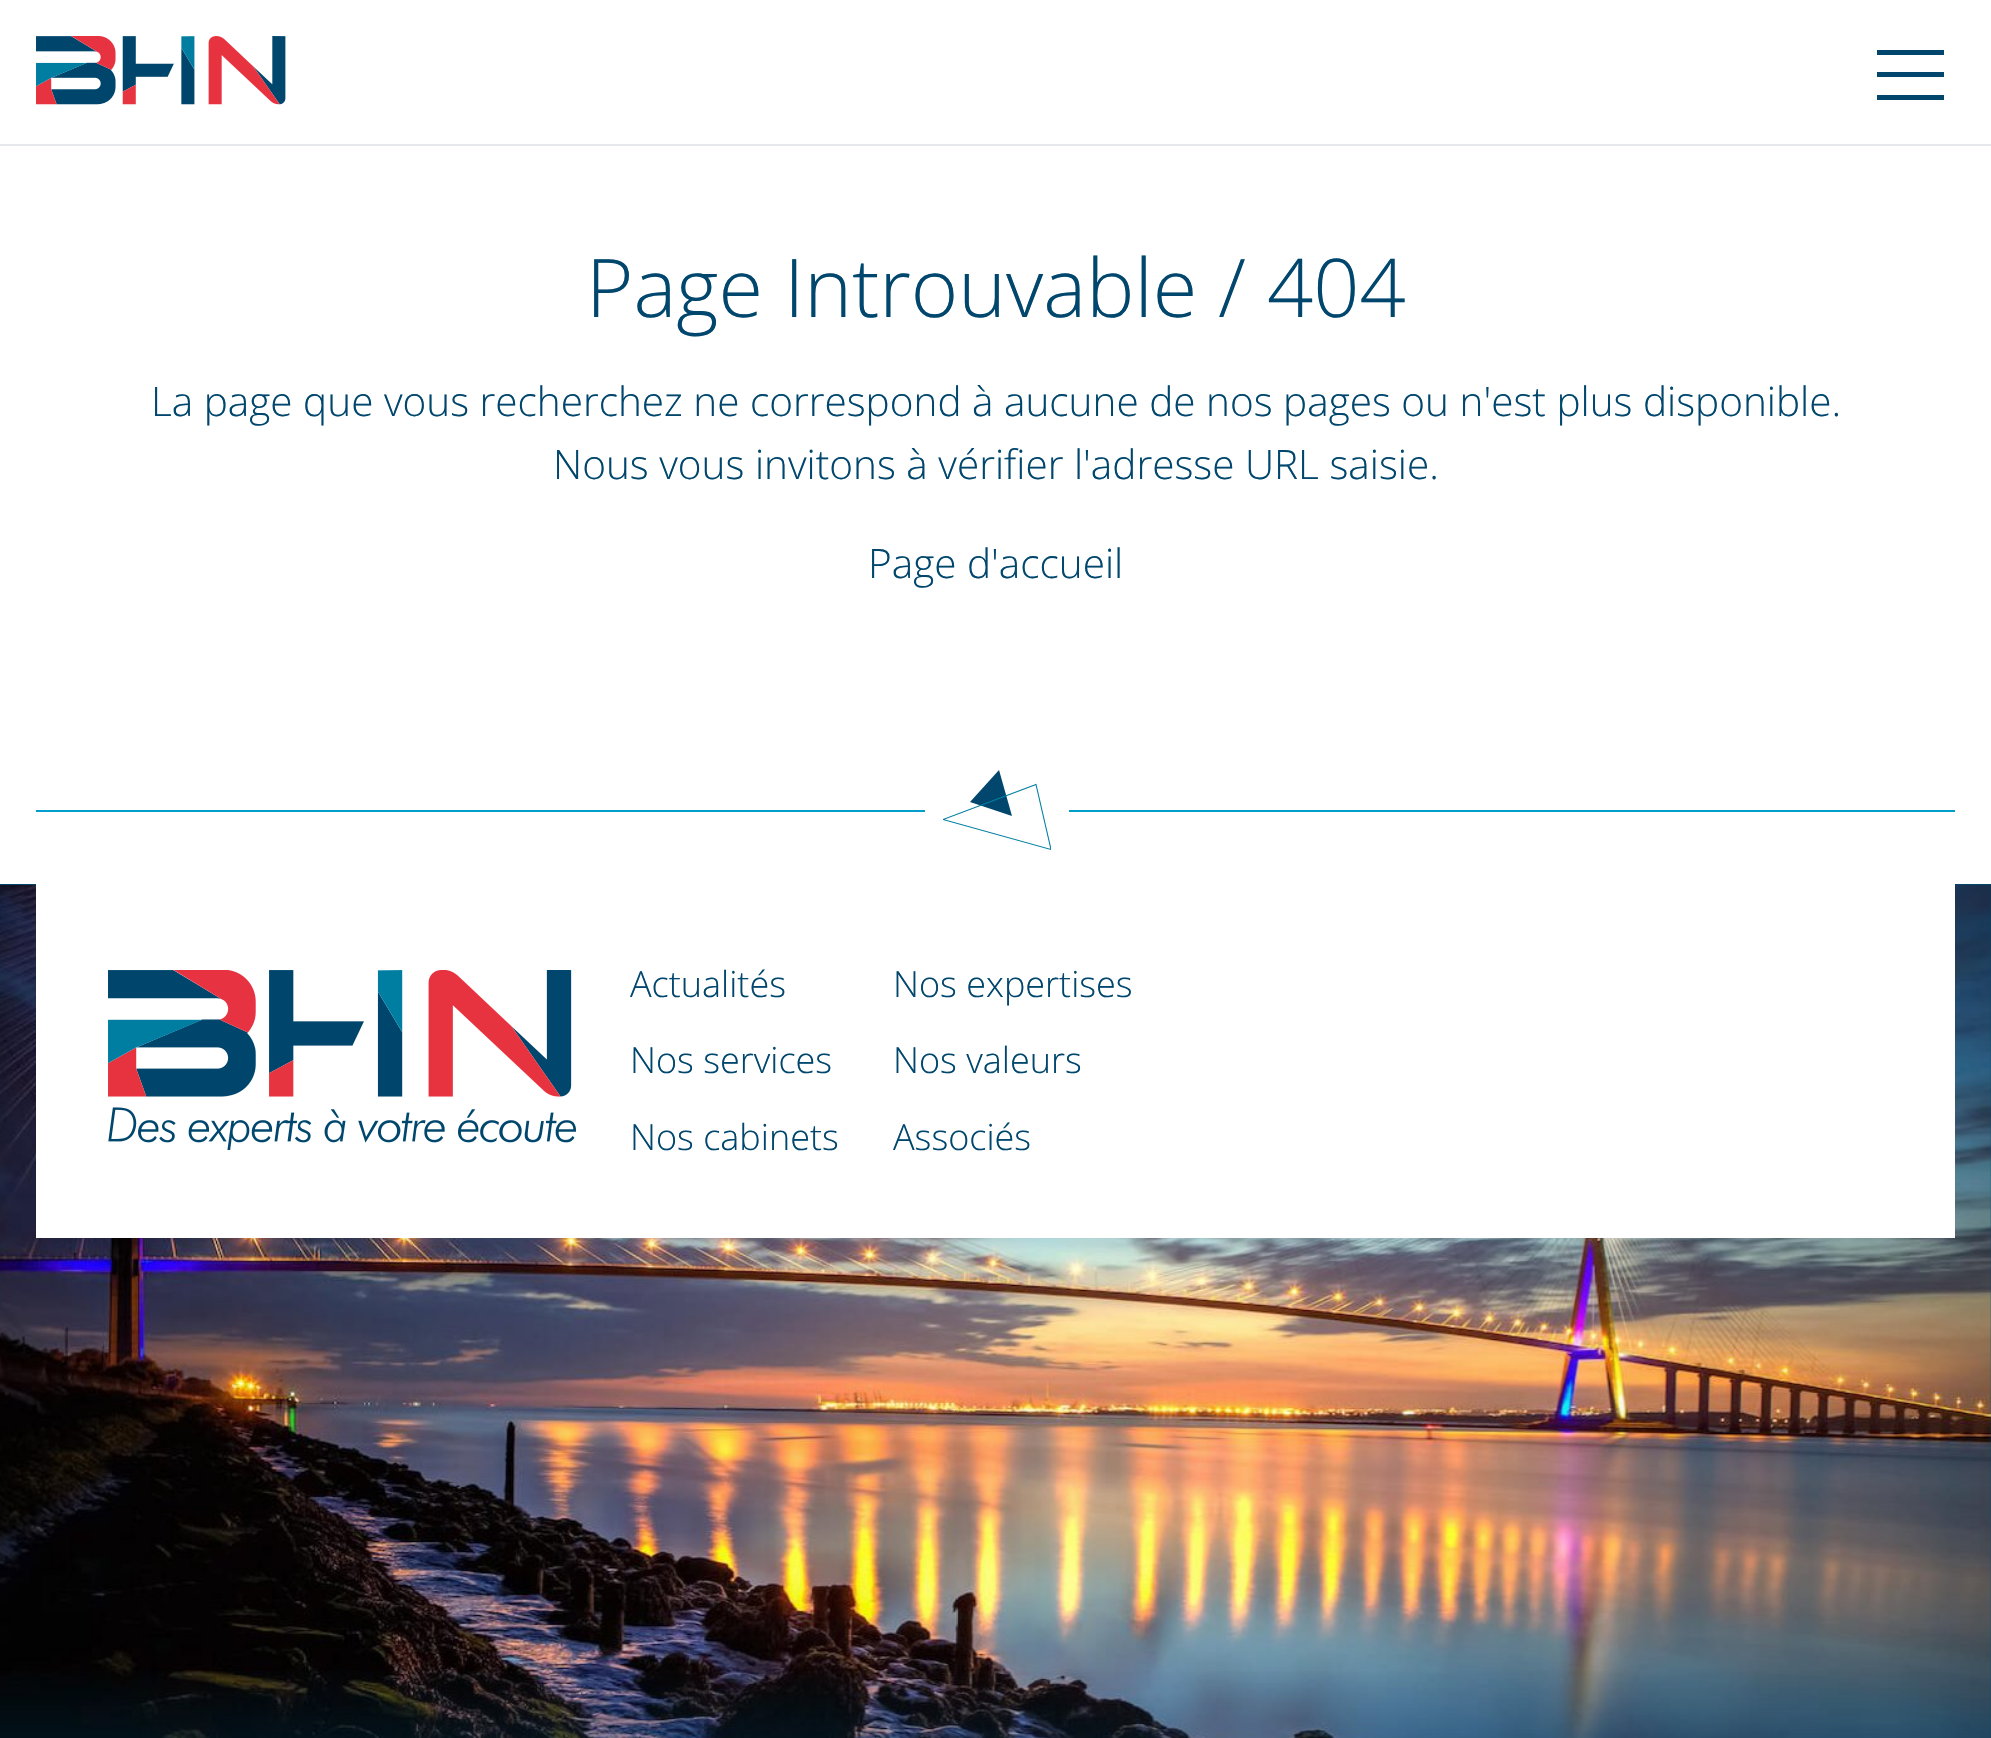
#include "include/core/SkBlurTypes.h"
#include "include/core/SkCanvas.h"
#include "include/core/SkData.h"
#include "include/core/SkFont.h"
#include "include/core/SkFontMgr.h"
#include "include/core/SkImage.h"
#include "include/core/SkMaskFilter.h"
#include "include/core/SkPaint.h"
#include "include/core/SkPathBuilder.h"
#include "include/core/SkTextBlob.h"
#include "include/effects/SkDashPathEffect.h"
#include "include/effects/SkGradientShader.h"
#include "include/utils/SkParsePath.h"

extern sk_sp<SkFontMgr> fontMgr;

void draw(SkCanvas* canvas) {
  SkPaint p;
  p.setAntiAlias(true);
  canvas->clear(SK_ColorWHITE);
  p.setColor(SkColorSetRGB(229, 231, 235));
  canvas->drawRect(SkRect::MakeLTRB(0, 144, 1991, 146), p);
  canvas->drawImageRect(SkImages::DeferredFromEncodedData(SkData::MakeFromFileName("images/1.png")), SkRect::MakeLTRB(36, 36, 286, 105), SkSamplingOptions());
  p.setColor(SkColorSetRGB(0, 70, 109));
  canvas->drawRect(SkRect::MakeLTRB(1877, 50, 1944, 55), p);
  canvas->drawRect(SkRect::MakeLTRB(1877, 72, 1944, 77), p);
  canvas->drawRect(SkRect::MakeLTRB(1877, 95, 1944, 100), p);
  p.setColor(SkColorSetRGB(0, 158, 203));
  canvas->drawRect(SkRect::MakeLTRB(36, 810, 1955, 812), p);
  p.setColor(SK_ColorWHITE);
  canvas->drawRect(SkRect::MakeLTRB(925, 810, 1069, 812), p);
  p.setColor(SkColorSetRGB(0, 70, 109));
  canvas->drawPath(SkPathBuilder().moveTo(999, 770).lineTo(970, 802).lineTo(1012, 816).close().detach(), p);
  canvas->save();
  canvas->clipRect(SkRect::MakeLTRB(943, 765, 1051, 855));
  p.setStyle(SkPaint::kStroke_Style);
  p.setStrokeWidth(1.1f);
  p.setColor(SkColorSetRGB(0, 126, 162));
  canvas->drawPath(SkPathBuilder().moveTo(1036, 784.5f).lineTo(1051, 849.5f).lineTo(943, 819.5f).close().detach(), p);
  canvas->restore();
  p.setStyle(SkPaint::kFill_Style);
  p.setColor(SkColorSetRGB(0, 70, 109));
  canvas->drawRect(SkRect::MakeLTRB(0, 884, 1991, 1738), p);
  canvas->drawImageRect(SkImages::DeferredFromEncodedData(SkData::MakeFromFileName("images/2.png")), SkRect::MakeLTRB(0, 885, 1991, 1738), SkSamplingOptions());
  p.setColor(SK_ColorWHITE);
  canvas->drawRect(SkRect::MakeLTRB(36, 884, 1955, 1238), p);
  canvas->drawImageRect(SkImages::DeferredFromEncodedData(SkData::MakeFromFileName("images/3.png")), SkRect::MakeLTRB(108, 970, 576, 1150), SkSamplingOptions());
  {
    const SkColor colors[] = {SkColorSetRGB(0, 70, 109), SkColorSetARGB(0, 0, 70, 109)};
    const float stops[] = {0, 1};
    const SkPoint ends[] = {{996, 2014}, {996, 1663}};
    p.setShader(SkGradientShader::MakeLinear(ends, colors, stops, 2, SkTileMode::kClamp));
    p.setAlpha(255);
  }
  canvas->drawRect(SkRect::MakeLTRB(0, 1671, 1991, 1738), p);
  SkFont font1(fontMgr->matchFamilyStyle("Open Sans", SkFontStyle(300, SkFontStyle::kNormal_Width, SkFontStyle::kUpright_Slant)), 81);
  font1.setSubpixel(true);
  p.setShader(nullptr);
  p.setColor(SkColorSetRGB(0, 70, 109));
  canvas->drawString("Page Introuvable / 404", 586, 317, font1, p);
  SkFont font2(fontMgr->matchFamilyStyle("Open Sans", SkFontStyle(300, SkFontStyle::kNormal_Width, SkFontStyle::kUpright_Slant)), 40.5f);
  font2.setSubpixel(true);
  canvas->drawString("La page que vous recherchez ne correspond à aucune de nos pages ou n'est plus disponible.", 151, 416, font2, p);
  canvas->drawString("Nous vous invitons à vérifier l'adresse URL saisie.", 553, 479, font2, p);
  canvas->drawString("Page d'accueil", 868, 578, font2, p);
  SkFont font3(fontMgr->matchFamilyStyle("Open Sans", SkFontStyle(300, SkFontStyle::kNormal_Width, SkFontStyle::kUpright_Slant)), 36);
  font3.setSubpixel(true);
  canvas->drawString("Actualités", 630, 997, font3, p);
  canvas->drawString("Nos services", 630, 1073, font3, p);
  canvas->drawString("Nos cabinets", 630, 1150, font3, p);
  canvas->drawString("Nos expertises", 893, 997, font3, p);
  canvas->drawString("Nos valeurs", 893, 1073, font3, p);
  canvas->drawString("Associés", 893, 1150, font3, p);
}
